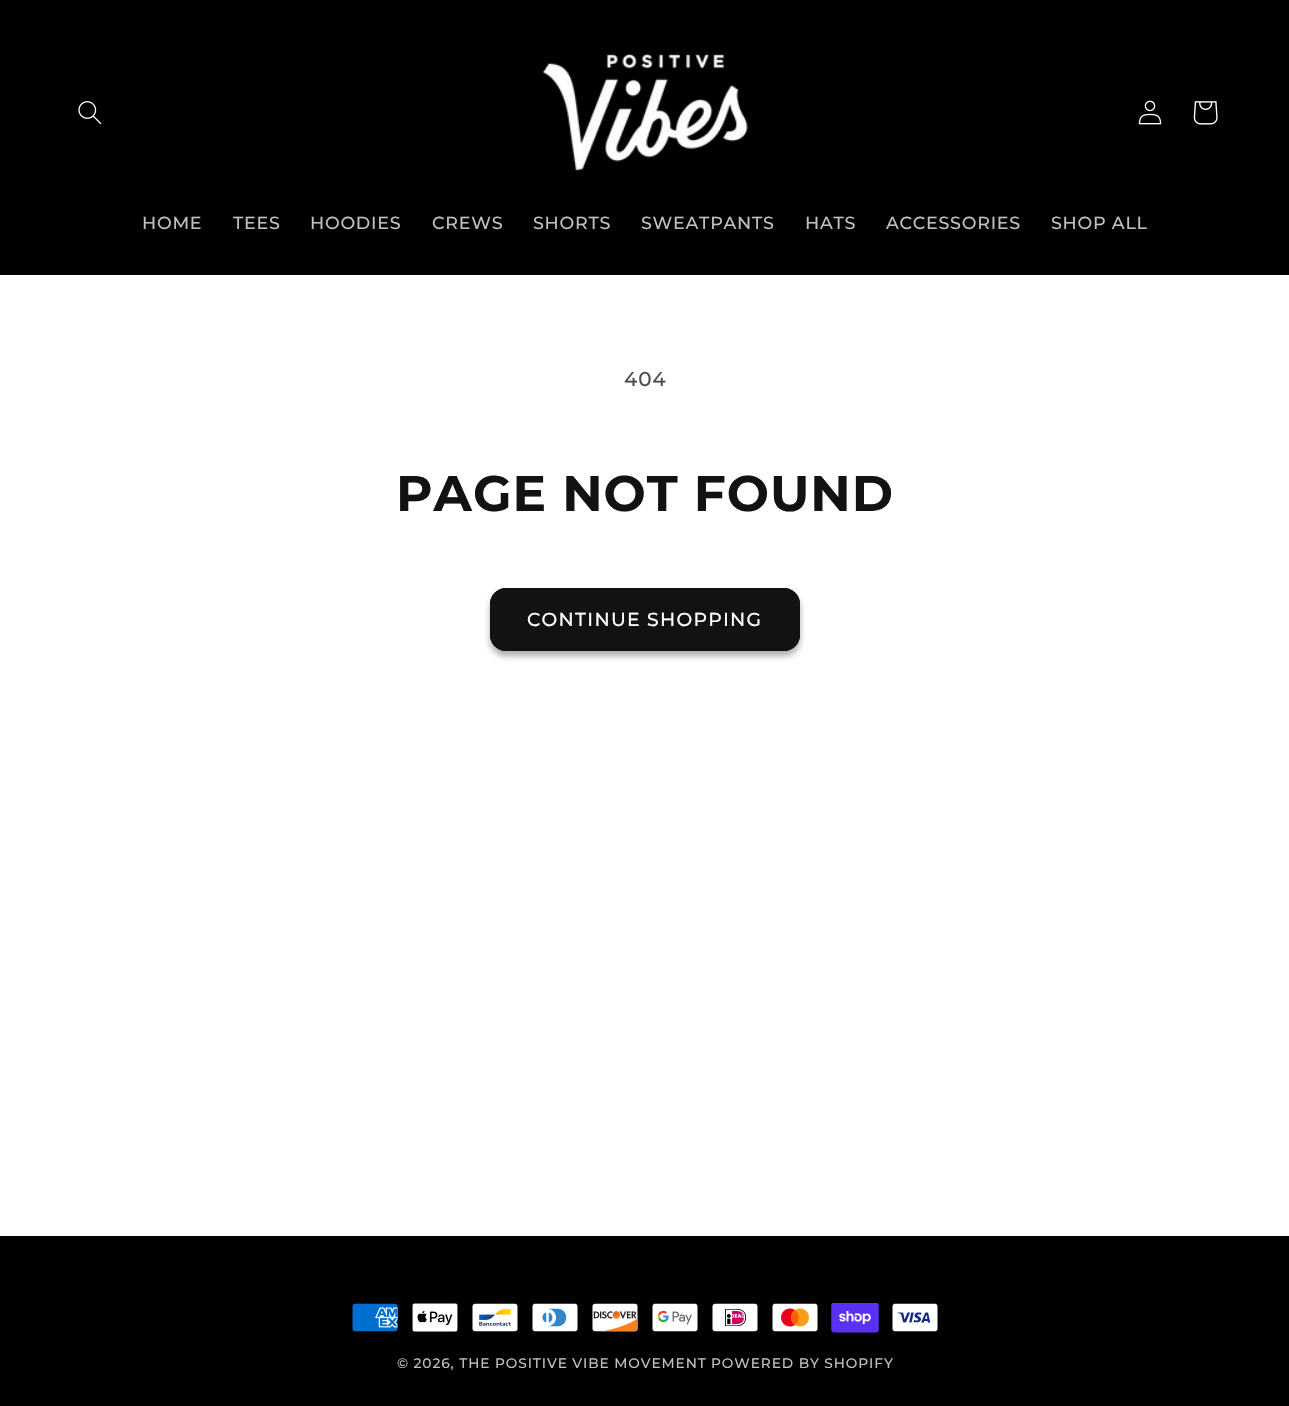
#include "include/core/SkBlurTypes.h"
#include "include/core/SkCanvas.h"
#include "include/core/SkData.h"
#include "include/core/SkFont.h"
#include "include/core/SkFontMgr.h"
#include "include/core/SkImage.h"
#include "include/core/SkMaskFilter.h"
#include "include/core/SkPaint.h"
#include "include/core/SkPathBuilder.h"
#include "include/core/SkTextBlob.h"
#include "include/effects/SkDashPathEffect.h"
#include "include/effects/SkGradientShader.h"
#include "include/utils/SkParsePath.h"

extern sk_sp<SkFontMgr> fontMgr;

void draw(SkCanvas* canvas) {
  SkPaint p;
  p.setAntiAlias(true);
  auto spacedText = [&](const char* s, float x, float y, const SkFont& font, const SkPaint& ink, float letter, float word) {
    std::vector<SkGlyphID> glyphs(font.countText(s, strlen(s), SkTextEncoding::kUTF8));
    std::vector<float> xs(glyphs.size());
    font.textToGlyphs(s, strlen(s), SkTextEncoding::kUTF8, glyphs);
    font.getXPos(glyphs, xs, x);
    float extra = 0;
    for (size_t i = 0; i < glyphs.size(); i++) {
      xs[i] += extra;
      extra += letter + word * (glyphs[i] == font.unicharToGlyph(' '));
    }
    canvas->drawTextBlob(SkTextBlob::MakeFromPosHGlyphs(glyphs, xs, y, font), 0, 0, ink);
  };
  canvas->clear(SK_ColorWHITE);
  p.setColor(SK_ColorBLACK);
  canvas->drawRect(SkRect::MakeLTRB(0, 0, 1289, 275), p);
  canvas->drawImageRect(SkImages::DeferredFromEncodedData(SkData::MakeFromFileName("images/1.png")), SkRect::MakeLTRB(78, 101, 102, 125), SkSamplingOptions());
  canvas->drawImageRect(SkImages::DeferredFromEncodedData(SkData::MakeFromFileName("images/2.png")), SkRect::MakeLTRB(542, 53, 748, 171), SkSamplingOptions());
  canvas->drawImageRect(SkImages::DeferredFromEncodedData(SkData::MakeFromFileName("images/3.png")), SkRect::MakeLTRB(1138, 100, 1162, 125), SkSamplingOptions());
  canvas->drawImageRect(SkImages::DeferredFromEncodedData(SkData::MakeFromFileName("images/4.png")), SkRect::MakeLTRB(1193, 101, 1218, 125), SkSamplingOptions());
  p.setColor(SkColorSetARGB(89, 18, 18, 18));
  p.setMaskFilter(SkMaskFilter::MakeBlur(kNormal_SkBlurStyle, 3));
  canvas->drawRoundRect(SkRect::MakeLTRB(490, 593, 800, 656), 16, 16, p);
  p.setMaskFilter(nullptr);
  p.setColor(SkColorSetRGB(18, 18, 18));
  canvas->drawRoundRect(SkRect::MakeLTRB(490, 588, 800, 651), 16, 16, p);
  p.setStyle(SkPaint::kStroke_Style);
  p.setStrokeWidth(4);
  canvas->drawRoundRect(SkRect::MakeLTRB(492, 590, 798, 649), 14, 14, p);
  p.setStyle(SkPaint::kFill_Style);
  p.setColor(SK_ColorBLACK);
  canvas->drawRect(SkRect::MakeLTRB(0, 1236, 1289, 1406), p);
  canvas->drawImageRect(SkImages::DeferredFromEncodedData(SkData::MakeFromFileName("images/5.png")), SkRect::MakeLTRB(352, 1303, 398, 1332), SkSamplingOptions());
  canvas->drawImageRect(SkImages::DeferredFromEncodedData(SkData::MakeFromFileName("images/6.png")), SkRect::MakeLTRB(412, 1303, 458, 1332), SkSamplingOptions());
  canvas->drawImageRect(SkImages::DeferredFromEncodedData(SkData::MakeFromFileName("images/7.png")), SkRect::MakeLTRB(472, 1303, 518, 1332), SkSamplingOptions());
  canvas->drawImageRect(SkImages::DeferredFromEncodedData(SkData::MakeFromFileName("images/8.png")), SkRect::MakeLTRB(532, 1303, 578, 1332), SkSamplingOptions());
  canvas->drawImageRect(SkImages::DeferredFromEncodedData(SkData::MakeFromFileName("images/9.png")), SkRect::MakeLTRB(592, 1303, 638, 1332), SkSamplingOptions());
  canvas->drawImageRect(SkImages::DeferredFromEncodedData(SkData::MakeFromFileName("images/10.png")), SkRect::MakeLTRB(652, 1303, 698, 1332), SkSamplingOptions());
  canvas->drawImageRect(SkImages::DeferredFromEncodedData(SkData::MakeFromFileName("images/11.png")), SkRect::MakeLTRB(712, 1303, 758, 1332), SkSamplingOptions());
  canvas->drawImageRect(SkImages::DeferredFromEncodedData(SkData::MakeFromFileName("images/12.png")), SkRect::MakeLTRB(772, 1303, 818, 1332), SkSamplingOptions());
  canvas->drawImageRect(SkImages::DeferredFromEncodedData(SkData::MakeFromFileName("images/13.png")), SkRect::MakeLTRB(831, 1303, 879, 1333), SkSamplingOptions());
  canvas->drawImageRect(SkImages::DeferredFromEncodedData(SkData::MakeFromFileName("images/14.png")), SkRect::MakeLTRB(892, 1303, 938, 1332), SkSamplingOptions());
  SkFont font1(fontMgr->matchFamilyStyle("Montserrat", SkFontStyle(500, SkFontStyle::kNormal_Width, SkFontStyle::kUpright_Slant)), 17.5f);
  font1.setSubpixel(true);
  p.setColor(SkColorSetRGB(191, 191, 191));
  spacedText("HOME", 142, 229, font1, p, 0.75f, 0);
  spacedText("TEES", 233, 229, font1, p, 0.75f, 0);
  spacedText("HOODIES", 310, 229, font1, p, 0.75f, 0);
  spacedText("CREWS", 432, 229, font1, p, 0.75f, 0);
  spacedText("SHORTS", 533, 229, font1, p, 0.75f, 0);
  spacedText("SWEATPANTS", 641, 229, font1, p, 0.75f, 0);
  spacedText("HATS", 805, 229, font1, p, 0.75f, 0);
  spacedText("ACCESSORIES", 886, 229, font1, p, 0.75f, 0);
  spacedText("SHOP ALL", 1051, 229, font1, p, 0.75f, 0);
  SkFont font2(fontMgr->matchFamilyStyle("Montserrat", SkFontStyle(500, SkFontStyle::kNormal_Width, SkFontStyle::kUpright_Slant)), 20);
  font2.setSubpixel(true);
  p.setColor(SkColorSetRGB(77, 77, 77));
  spacedText("404", 624, 386, font2, p, 0.75f, 0);
  SkFont font3(fontMgr->matchFamilyStyle("Montserrat", SkFontStyle::Bold()), 50);
  font3.setSubpixel(true);
  p.setColor(SkColorSetRGB(18, 18, 18));
  spacedText("PAGE NOT FOUND", 396, 511, font3, p, 1, 0);
  SkFont font4(fontMgr->matchFamilyStyle("Montserrat", SkFontStyle(500, SkFontStyle::kNormal_Width, SkFontStyle::kUpright_Slant)), 18.75f);
  font4.setSubpixel(true);
  p.setColor(SK_ColorWHITE);
  spacedText("CONTINUE SHOPPING", 527, 626, font4, p, 1.25f, 0);
  SkFont font5(fontMgr->matchFamilyStyle("Montserrat", SkFontStyle(500, SkFontStyle::kNormal_Width, SkFontStyle::kUpright_Slant)), 13.75f);
  font5.setSubpixel(true);
  p.setColor(SkColorSetRGB(191, 191, 191));
  spacedText("© 2026, THE POSITIVE VIBE MOVEMENT", 397, 1368, font5, p, 0.9f, 0);
  spacedText("POWERED BY SHOPIFY", 711, 1368, font5, p, 0.9f, 0);
}
